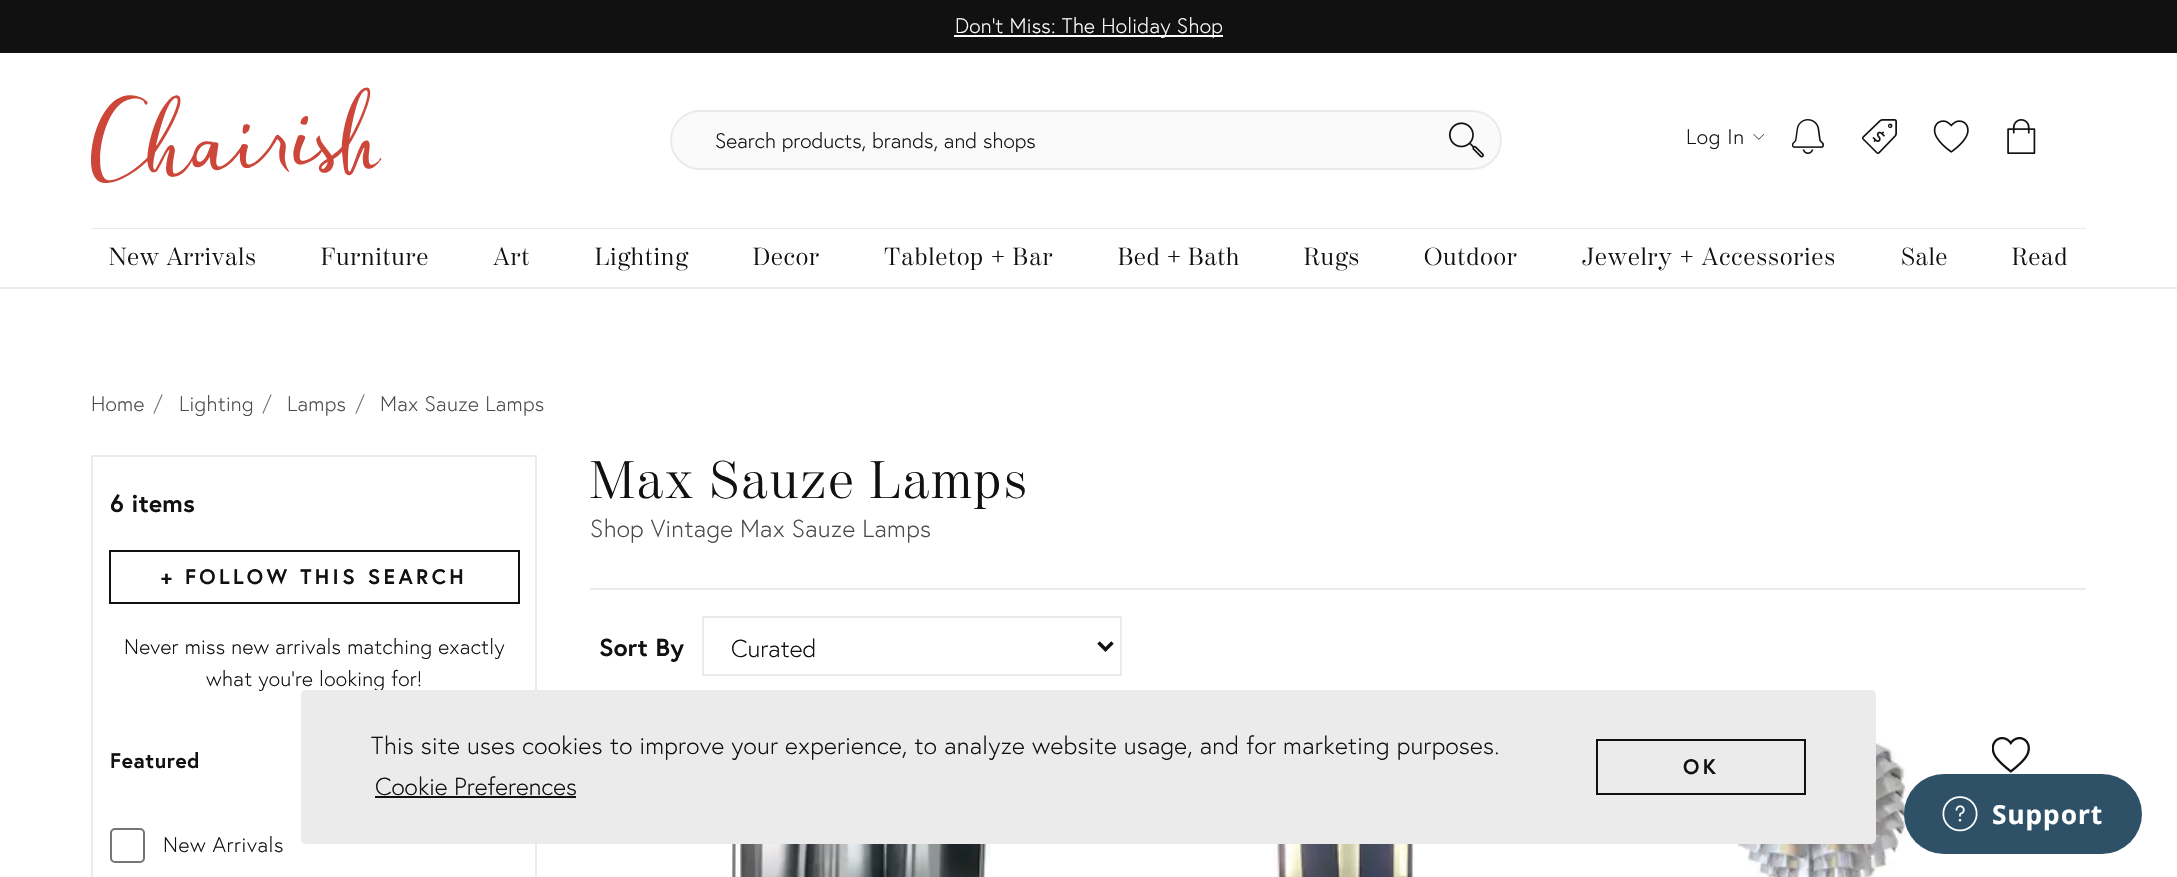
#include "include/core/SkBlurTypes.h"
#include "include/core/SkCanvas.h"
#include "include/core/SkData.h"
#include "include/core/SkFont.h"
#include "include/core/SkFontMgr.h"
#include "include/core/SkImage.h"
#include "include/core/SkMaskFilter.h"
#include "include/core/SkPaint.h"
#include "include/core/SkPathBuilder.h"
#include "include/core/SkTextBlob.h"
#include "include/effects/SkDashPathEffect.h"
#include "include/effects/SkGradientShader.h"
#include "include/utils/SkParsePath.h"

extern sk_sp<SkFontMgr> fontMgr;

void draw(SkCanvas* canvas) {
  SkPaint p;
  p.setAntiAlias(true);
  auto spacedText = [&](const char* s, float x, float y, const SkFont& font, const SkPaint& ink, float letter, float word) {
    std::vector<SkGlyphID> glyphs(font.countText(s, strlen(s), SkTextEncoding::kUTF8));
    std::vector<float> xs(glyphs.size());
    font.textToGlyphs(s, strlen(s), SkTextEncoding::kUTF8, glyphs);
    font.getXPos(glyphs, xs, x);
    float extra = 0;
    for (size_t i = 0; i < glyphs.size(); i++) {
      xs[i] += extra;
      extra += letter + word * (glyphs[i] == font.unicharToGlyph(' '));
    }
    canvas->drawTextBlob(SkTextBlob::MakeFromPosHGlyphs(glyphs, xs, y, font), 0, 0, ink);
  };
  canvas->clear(SK_ColorWHITE);
  p.setColor(SkColorSetRGB(17, 17, 17));
  canvas->drawRect(SkRect::MakeLTRB(0, 0, 2177, 53), p);
  p.setColor(SK_ColorWHITE);
  canvas->drawRect(SkRect::MakeLTRB(954, 35, 1223, 37), p);
  p.setColor(SkColorSetRGB(235, 235, 235));
  canvas->drawRect(SkRect::MakeLTRB(0, 287, 2177, 289), p);
  canvas->drawImageRect(SkImages::DeferredFromEncodedData(SkData::MakeFromFileName("images/1.png")), SkRect::MakeLTRB(91, 87, 382, 183), SkSamplingOptions());
  p.setColor(SkColorSetRGB(250, 250, 250));
  canvas->drawRoundRect(SkRect::MakeLTRB(671, 111, 1501, 169), 29, 29, p);
  p.setStyle(SkPaint::kStroke_Style);
  p.setStrokeWidth(2);
  p.setColor(SkColorSetRGB(235, 235, 235));
  canvas->drawRoundRect(SkRect::MakeLTRB(671, 111, 1501, 169), 29, 29, p);
  canvas->drawImageRect(SkImages::DeferredFromEncodedData(SkData::MakeFromFileName("images/2.png")), SkRect::MakeLTRB(1448, 122, 1484, 158), SkSamplingOptions());
  canvas->drawImageRect(SkImages::DeferredFromEncodedData(SkData::MakeFromFileName("images/3.png")), SkRect::MakeLTRB(1753, 134, 1764, 140), SkSamplingOptions());
  canvas->drawImageRect(SkImages::DeferredFromEncodedData(SkData::MakeFromFileName("images/4.png")), SkRect::MakeLTRB(1792, 119, 1824, 154), SkSamplingOptions());
  canvas->drawImageRect(SkImages::DeferredFromEncodedData(SkData::MakeFromFileName("images/5.png")), SkRect::MakeLTRB(1862, 119, 1897, 154), SkSamplingOptions());
  canvas->drawImageRect(SkImages::DeferredFromEncodedData(SkData::MakeFromFileName("images/6.png")), SkRect::MakeLTRB(1933, 120, 1969, 153), SkSamplingOptions());
  canvas->drawImageRect(SkImages::DeferredFromEncodedData(SkData::MakeFromFileName("images/7.png")), SkRect::MakeLTRB(2007, 119, 2036, 154), SkSamplingOptions());
  p.setStyle(SkPaint::kFill_Style);
  canvas->drawRect(SkRect::MakeLTRB(91, 228, 2086, 229), p);
  p.setStyle(SkPaint::kStroke_Style);
  canvas->drawRect(SkRect::MakeLTRB(92, 456, 536, 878), p);
  p.setColor(SkColorSetRGB(17, 17, 17));
  canvas->drawRect(SkRect::MakeLTRB(110, 551, 519, 603), p);
  p.setColor(SkColorSetRGB(117, 117, 117));
  canvas->drawRoundRect(SkRect::MakeLTRB(111, 829, 144, 862), 4, 4, p);
  p.setStyle(SkPaint::kFill_Style);
  p.setColor(SkColorSetRGB(235, 235, 235));
  canvas->drawRect(SkRect::MakeLTRB(590, 588, 2086, 590), p);
  p.setStyle(SkPaint::kStroke_Style);
  canvas->drawRect(SkRect::MakeLTRB(703, 617, 1121, 675), p);
  p.setStrokeWidth(3.5f);
  p.setColor(SkColorSetRGB(17, 17, 17));
  canvas->drawPath(SkPathBuilder().moveTo(1098.5f, 642.5f).lineTo(1105.5f, 649.5f).lineTo(1112.5f, 642.5f).detach(), p);
  canvas->drawImageRect(SkImages::DeferredFromEncodedData(SkData::MakeFromFileName("images/8.png")), SkRect::MakeLTRB(731, 844, 991, 877), SkSamplingOptions());
  canvas->drawImageRect(SkImages::DeferredFromEncodedData(SkData::MakeFromFileName("images/9.png")), SkRect::MakeLTRB(1273, 844, 1415, 877), SkSamplingOptions());
  canvas->drawImageRect(SkImages::DeferredFromEncodedData(SkData::MakeFromFileName("images/10.png")), SkRect::MakeLTRB(1729, 738, 1910, 877), SkSamplingOptions());
  canvas->drawImageRect(SkImages::DeferredFromEncodedData(SkData::MakeFromFileName("images/11.png")), SkRect::MakeLTRB(1992, 737, 2030, 773), SkSamplingOptions());
  p.setStyle(SkPaint::kFill_Style);
  p.setColor(SkColorSetRGB(46, 81, 103));
  canvas->drawRoundRect(SkRect::MakeLTRB(1904, 774, 2142, 854), 40, 40, p);
  canvas->drawImageRect(SkImages::DeferredFromEncodedData(SkData::MakeFromFileName("images/12.png")), SkRect::MakeLTRB(1942, 796, 1978, 832), SkSamplingOptions());
  SkFont font1(fontMgr->matchFamilyStyle("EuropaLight", SkFontStyle(300, SkFontStyle::kNormal_Width, SkFontStyle::kUpright_Slant)), 21);
  font1.setSubpixel(true);
  p.setColor(SK_ColorWHITE);
  spacedText("Don't Miss: The Holiday Shop", 955, 33, font1, p, 0.25f, 0);
  canvas->save();
  canvas->clipRect(SkRect::MakeLTRB(716, 126, 1370, 152));
  p.setColor(SkColorSetRGB(17, 17, 17));
  canvas->drawString("Search products, brands, and shops", 715, 148, font1, p);
  canvas->restore();
  spacedText("Log In", 1686, 144, font1, p, 0.6f, 0);
  SkFont font2(fontMgr->matchFamilyStyle("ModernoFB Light", SkFontStyle(300, SkFontStyle::kNormal_Width, SkFontStyle::kUpright_Slant)), 24.5f);
  font2.setSubpixel(true);
  spacedText("New Arrivals", 109, 265, font2, p, 0.75f, 0);
  spacedText("Furniture", 321, 265, font2, p, 1, 0);
  spacedText("Art", 493, 265, font2, p, 1, 0);
  spacedText("Lighting", 595, 265, font2, p, 1, 0);
  spacedText("Decor", 753, 265, font2, p, 1, 0);
  spacedText("Tabletop + Bar", 884, 265, font2, p, 1, 0);
  spacedText("Bed + Bath", 1118, 265, font2, p, 0.75f, 0);
  spacedText("Rugs", 1304, 265, font2, p, 1, 0);
  spacedText("Outdoor", 1424, 265, font2, p, 1, 0);
  spacedText("Jewelry + Accessories", 1582, 265, font2, p, 1, 0);
  spacedText("Sale", 1901, 265, font2, p, 0.75f, 0);
  spacedText("Read", 2012, 265, font2, p, 0.75f, 0);
  p.setColor(SkColorSetRGB(74, 74, 74));
  spacedText("Home", 91, 411, font1, p, 0.25f, 0);
  p.setColor(SkColorSetRGB(117, 117, 117));
  spacedText("/", 153, 411, font1, p, 0.25f, 0);
  p.setColor(SkColorSetRGB(74, 74, 74));
  spacedText("Lighting", 179, 411, font1, p, 0.25f, 0);
  p.setColor(SkColorSetRGB(117, 117, 117));
  spacedText("/", 262, 411, font1, p, 0.25f, 0);
  p.setColor(SkColorSetRGB(74, 74, 74));
  spacedText("Lamps", 287, 411, font1, p, 0.25f, 0);
  p.setColor(SkColorSetRGB(117, 117, 117));
  spacedText("/", 355, 411, font1, p, 0.25f, 0);
  p.setColor(SkColorSetRGB(74, 74, 74));
  spacedText("Max Sauze Lamps", 380, 411, font1, p, 0.25f, 0);
  SkFont font3(fontMgr->matchFamilyStyle("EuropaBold", SkFontStyle::Bold()), 24.5f);
  font3.setSubpixel(true);
  p.setColor(SkColorSetRGB(17, 17, 17));
  spacedText("6 items", 110, 512, font3, p, 0.25f, 0);
  SkFont font4(fontMgr->matchFamilyStyle("EuropaBold", SkFontStyle::Bold()), 21);
  font4.setSubpixel(true);
  spacedText("+ FOLLOW THIS SEARCH", 161, 584, font4, p, 3.4f, 0);
  spacedText("Never miss new arrivals matching exactly", 124, 654, font1, p, 0.25f, 0);
  spacedText("what you’re looking for!", 206, 686, font1, p, 0.25f, 0);
  spacedText("Featured", 110, 768, font4, p, 0.6f, 0);
  spacedText("New Arrivals", 163, 852, font1, p, 0.6f, 0);
  SkFont font5(fontMgr->matchFamilyStyle("ModernoFB Light", SkFontStyle(300, SkFontStyle::kNormal_Width, SkFontStyle::kUpright_Slant)), 52.5f);
  font5.setSubpixel(true);
  spacedText("Max Sauze Lamps", 590, 498, font5, p, 2.2f, 0);
  SkFont font6(fontMgr->matchFamilyStyle("EuropaLight", SkFontStyle(300, SkFontStyle::kNormal_Width, SkFontStyle::kUpright_Slant)), 24.5f);
  font6.setSubpixel(true);
  p.setColor(SkColorSetRGB(74, 74, 74));
  spacedText("Shop Vintage Max Sauze Lamps", 590, 537, font6, p, 0.25f, 0);
  p.setColor(SkColorSetRGB(17, 17, 17));
  spacedText("Sort By", 599, 656, font3, p, 0.25f, 0);
  canvas->drawString("Curated", 731, 657, font6, p);
  p.setColor(SkColorSetRGB(235, 235, 235));
  canvas->drawRoundRect(SkRect::MakeLTRB(302, 691, 1875, 843), 4, 4, p);
  p.setStyle(SkPaint::kStroke_Style);
  p.setStrokeWidth(2);
  canvas->drawRoundRect(SkRect::MakeLTRB(302, 691, 1875, 843), 4, 4, p);
  p.setStyle(SkPaint::kFill_Style);
  p.setColor(SkColorSetRGB(17, 17, 17));
  spacedText("This site uses cookies to improve your experience, to analyze website usage, and for marketing purposes.", 371, 754, font6, p, 0.25f, 0);
  canvas->drawString("Cookie Preferences", 375, 795, font6, p);
  canvas->drawRect(SkRect::MakeLTRB(375, 796, 576, 798), p);
  p.setStyle(SkPaint::kStroke_Style);
  canvas->drawRect(SkRect::MakeLTRB(1597, 740, 1805, 794), p);
  p.setStyle(SkPaint::kFill_Style);
  spacedText("OK", 1683, 774, font4, p, 3.4f, 0);
  SkFont font7(fontMgr->matchFamilyStyle("Noto Sans", SkFontStyle::Bold()), 26.25f);
  font7.setSubpixel(true);
  p.setColor(SK_ColorWHITE);
  spacedText("Support", 1992, 824, font7, p, 1, 0);
}
